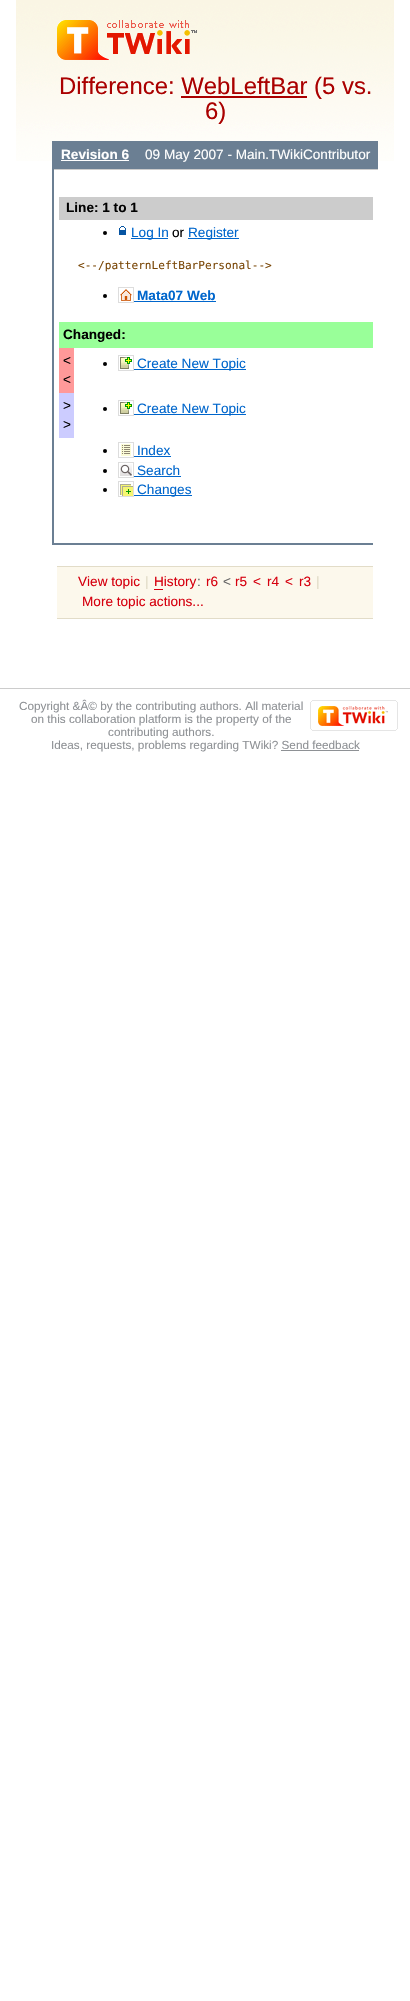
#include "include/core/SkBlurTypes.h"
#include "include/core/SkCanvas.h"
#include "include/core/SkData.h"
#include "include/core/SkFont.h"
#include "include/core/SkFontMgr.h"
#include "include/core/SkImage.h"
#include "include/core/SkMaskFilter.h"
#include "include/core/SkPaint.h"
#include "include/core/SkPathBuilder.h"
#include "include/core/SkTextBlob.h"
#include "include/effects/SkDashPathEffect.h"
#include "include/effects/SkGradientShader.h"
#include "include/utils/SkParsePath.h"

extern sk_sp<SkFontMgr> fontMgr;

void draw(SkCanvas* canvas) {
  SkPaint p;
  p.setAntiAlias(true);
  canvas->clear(SK_ColorWHITE);
  canvas->drawImageRect(SkImages::DeferredFromEncodedData(SkData::MakeFromFileName("images/1.png")), SkRect::MakeLTRB(16, 0, 394, 161), SkSamplingOptions());
  canvas->drawImageRect(SkImages::DeferredFromEncodedData(SkData::MakeFromFileName("images/2.png")), SkRect::MakeLTRB(57, 20, 197, 60), SkSamplingOptions());
  p.setColor(SkColorSetRGB(170, 0, 0));
  canvas->drawRect(SkRect::MakeLTRB(181, 96, 307, 98), p);
  p.setColor(SkColorSetRGB(107, 127, 147));
  canvas->drawRect(SkRect::MakeLTRB(52, 543, 373, 545), p);
  canvas->drawRect(SkRect::MakeLTRB(52, 141, 54, 545), p);
  canvas->drawRect(SkRect::MakeLTRB(54, 141, 378, 169), p);
  p.setColor(SkColorSetRGB(204, 204, 204));
  canvas->drawRect(SkRect::MakeLTRB(54, 169, 378, 170), p);
  p.setColor(SK_ColorWHITE);
  canvas->drawRect(SkRect::MakeLTRB(61, 160, 129, 161), p);
  p.setColor(SkColorSetRGB(204, 204, 204));
  canvas->drawRect(SkRect::MakeLTRB(59, 197, 373, 220), p);
  canvas->drawImageRect(SkImages::DeferredFromEncodedData(SkData::MakeFromFileName("images/3.png")), SkRect::MakeLTRB(119, 226, 126, 235), SkSamplingOptions());
  p.setColor(SK_ColorBLACK);
  canvas->drawCircle(105, 233, 2, p);
  p.setColor(SkColorSetRGB(0, 102, 204));
  canvas->drawRect(SkRect::MakeLTRB(131, 238, 168, 239), p);
  canvas->drawRect(SkRect::MakeLTRB(188, 238, 239, 239), p);
  p.setColor(SK_ColorBLACK);
  canvas->drawCircle(105, 296, 2, p);
  canvas->drawImageRect(SkImages::DeferredFromEncodedData(SkData::MakeFromFileName("images/4.png")), SkRect::MakeLTRB(118, 287, 134, 303), SkSamplingOptions());
  p.setColor(SkColorSetRGB(0, 102, 204));
  canvas->drawRect(SkRect::MakeLTRB(134, 301, 216, 302), p);
  p.setColor(SkColorSetRGB(153, 255, 153));
  canvas->drawRect(SkRect::MakeLTRB(59, 322, 373, 348), p);
  p.setColor(SkColorSetRGB(255, 153, 153));
  canvas->drawRect(SkRect::MakeLTRB(59, 348, 74, 393), p);
  p.setColor(SK_ColorBLACK);
  canvas->drawCircle(105, 364, 2, p);
  canvas->drawImageRect(SkImages::DeferredFromEncodedData(SkData::MakeFromFileName("images/5.png")), SkRect::MakeLTRB(118, 355, 134, 371), SkSamplingOptions());
  p.setColor(SkColorSetRGB(0, 102, 204));
  canvas->drawRect(SkRect::MakeLTRB(134, 369, 246, 370), p);
  p.setColor(SkColorSetRGB(204, 204, 255));
  canvas->drawRect(SkRect::MakeLTRB(59, 393, 74, 438), p);
  p.setColor(SK_ColorBLACK);
  canvas->drawCircle(105, 409, 2, p);
  canvas->drawImageRect(SkImages::DeferredFromEncodedData(SkData::MakeFromFileName("images/5.png")), SkRect::MakeLTRB(118, 400, 134, 416), SkSamplingOptions());
  p.setColor(SkColorSetRGB(0, 102, 204));
  canvas->drawRect(SkRect::MakeLTRB(134, 414, 246, 415), p);
  p.setColor(SK_ColorBLACK);
  canvas->drawCircle(105, 451, 2, p);
  canvas->drawImageRect(SkImages::DeferredFromEncodedData(SkData::MakeFromFileName("images/6.png")), SkRect::MakeLTRB(118, 442, 134, 458), SkSamplingOptions());
  p.setColor(SkColorSetRGB(0, 102, 204));
  canvas->drawRect(SkRect::MakeLTRB(134, 456, 171, 457), p);
  p.setColor(SK_ColorBLACK);
  canvas->drawCircle(105, 471, 2, p);
  canvas->drawImageRect(SkImages::DeferredFromEncodedData(SkData::MakeFromFileName("images/7.png")), SkRect::MakeLTRB(118, 462, 134, 478), SkSamplingOptions());
  p.setColor(SkColorSetRGB(0, 102, 204));
  canvas->drawRect(SkRect::MakeLTRB(134, 476, 181, 477), p);
  p.setColor(SK_ColorBLACK);
  canvas->drawCircle(105, 490, 2, p);
  canvas->drawImageRect(SkImages::DeferredFromEncodedData(SkData::MakeFromFileName("images/8.png")), SkRect::MakeLTRB(118, 481, 134, 497), SkSamplingOptions());
  p.setColor(SkColorSetRGB(0, 102, 204));
  canvas->drawRect(SkRect::MakeLTRB(134, 495, 192, 496), p);
  p.setColor(SkColorSetRGB(226, 220, 200));
  canvas->drawRect(SkRect::MakeLTRB(57, 618, 373, 619), p);
  p.setColor(SkColorSetRGB(252, 248, 236));
  canvas->drawRect(SkRect::MakeLTRB(57, 567, 373, 618), p);
  p.setColor(SkColorSetRGB(226, 220, 200));
  canvas->drawRect(SkRect::MakeLTRB(57, 566, 373, 567), p);
  p.setColor(SkColorSetRGB(214, 0, 15));
  canvas->drawRect(SkRect::MakeLTRB(154, 589, 163, 590), p);
  p.setColor(SkColorSetRGB(204, 204, 204));
  canvas->drawRect(SkRect::MakeLTRB(0, 688, 410, 689), p);
  canvas->drawImageRect(SkImages::DeferredFromEncodedData(SkData::MakeFromFileName("images/9.png")), SkRect::MakeLTRB(310, 700, 398, 731), SkSamplingOptions());
  p.setColor(SkColorSetRGB(142, 145, 149));
  canvas->drawRect(SkRect::MakeLTRB(281, 750, 359, 751), p);
  SkFont font1(fontMgr->matchFamilyStyle("Liberation Sans", SkFontStyle::Normal()), 23.9f);
  font1.setSubpixel(true);
  p.setColor(SkColorSetRGB(170, 0, 0));
  canvas->drawString("Difference: WebLeftBar (5 vs.", 59, 94, font1, p);
  canvas->drawString("6)", 205, 119, font1, p);
  SkFont font2(fontMgr->matchFamilyStyle("Liberation Sans", SkFontStyle::Bold()), 13.6f);
  font2.setSubpixel(true);
  p.setColor(SK_ColorWHITE);
  canvas->drawString("Revision 6", 61, 159, font2, p);
  SkFont font3(fontMgr->matchFamilyStyle("Liberation Sans", SkFontStyle::Normal()), 13.6f);
  font3.setSubpixel(true);
  canvas->drawString("09 May 2007 - Main.TWikiContributor", 145, 159, font3, p);
  p.setColor(SK_ColorBLACK);
  canvas->drawString("Line: 1 to 1", 66, 212, font2, p);
  p.setColor(SkColorSetRGB(0, 102, 204));
  canvas->drawString("Log In", 131, 237, font3, p);
  p.setColor(SK_ColorBLACK);
  canvas->drawString("or", 172, 237, font3, p);
  p.setColor(SkColorSetRGB(0, 102, 204));
  canvas->drawString("Register", 188, 237, font3, p);
  SkFont font4(fontMgr->matchFamilyStyle("DejaVu Sans Mono", SkFontStyle::Normal()), 11.1f);
  font4.setSubpixel(true);
  p.setColor(SkColorSetRGB(122, 71, 7));
  canvas->drawString("<--/patternLeftBarPersonal-->", 78, 269, font4, p);
  p.setColor(SkColorSetRGB(0, 102, 204));
  canvas->drawString("Mata07 Web", 137, 300, font2, p);
  p.setColor(SK_ColorBLACK);
  canvas->drawString("Changed:", 63, 339, font2, p);
  canvas->drawString("<", 63, 365, font3, p);
  canvas->drawString("<", 63, 384, font3, p);
  p.setColor(SkColorSetRGB(0, 102, 204));
  canvas->drawString("Create New Topic", 137, 368, font3, p);
  p.setColor(SK_ColorBLACK);
  canvas->drawString(">", 63, 410, font3, p);
  canvas->drawString(">", 63, 429, font3, p);
  p.setColor(SkColorSetRGB(0, 102, 204));
  canvas->drawString("Create New Topic", 137, 413, font3, p);
  canvas->drawString("Index", 137, 455, font3, p);
  canvas->drawString("Search", 137, 475, font3, p);
  canvas->drawString("Changes", 137, 494, font3, p);
  p.setColor(SkColorSetRGB(214, 0, 15));
  canvas->drawString("View topic", 78, 586, font3, p);
  p.setColor(SkColorSetRGB(226, 220, 200));
  canvas->drawString("|", 145, 586, font3, p);
  p.setColor(SkColorSetRGB(214, 0, 15));
  canvas->drawString("History", 154, 586, font3, p);
  p.setColor(SkColorSetRGB(102, 102, 102));
  canvas->drawString(":", 197, 586, font3, p);
  p.setColor(SkColorSetRGB(214, 0, 15));
  canvas->drawString("r6", 206, 586, font3, p);
  p.setColor(SkColorSetRGB(102, 102, 102));
  canvas->drawString("<", 223, 586, font3, p);
  p.setColor(SkColorSetRGB(214, 0, 15));
  canvas->drawString("r5", 235, 586, font3, p);
  canvas->drawString("<", 253, 586, font3, p);
  canvas->drawString("r4", 267, 586, font3, p);
  canvas->drawString("<", 285, 586, font3, p);
  canvas->drawString("r3", 299, 586, font3, p);
  p.setColor(SkColorSetRGB(226, 220, 200));
  canvas->drawString("|", 316, 586, font3, p);
  p.setColor(SkColorSetRGB(214, 0, 15));
  canvas->drawString("More topic actions...", 82, 606, font3, p);
  SkFont font5(fontMgr->matchFamilyStyle("Liberation Sans", SkFontStyle::Normal()), 11.75f);
  font5.setSubpixel(true);
  p.setColor(SkColorSetRGB(142, 145, 149));
  canvas->drawString("Copyright &Â© by the contributing authors. All material", 19, 710, font5, p);
  canvas->drawString("on this collaboration platform is the property of the", 31, 723, font5, p);
  canvas->drawString("contributing authors.", 108, 736, font5, p);
  canvas->drawString("Ideas, requests, problems regarding TWiki? Send feedback", 51, 749, font5, p);
}
